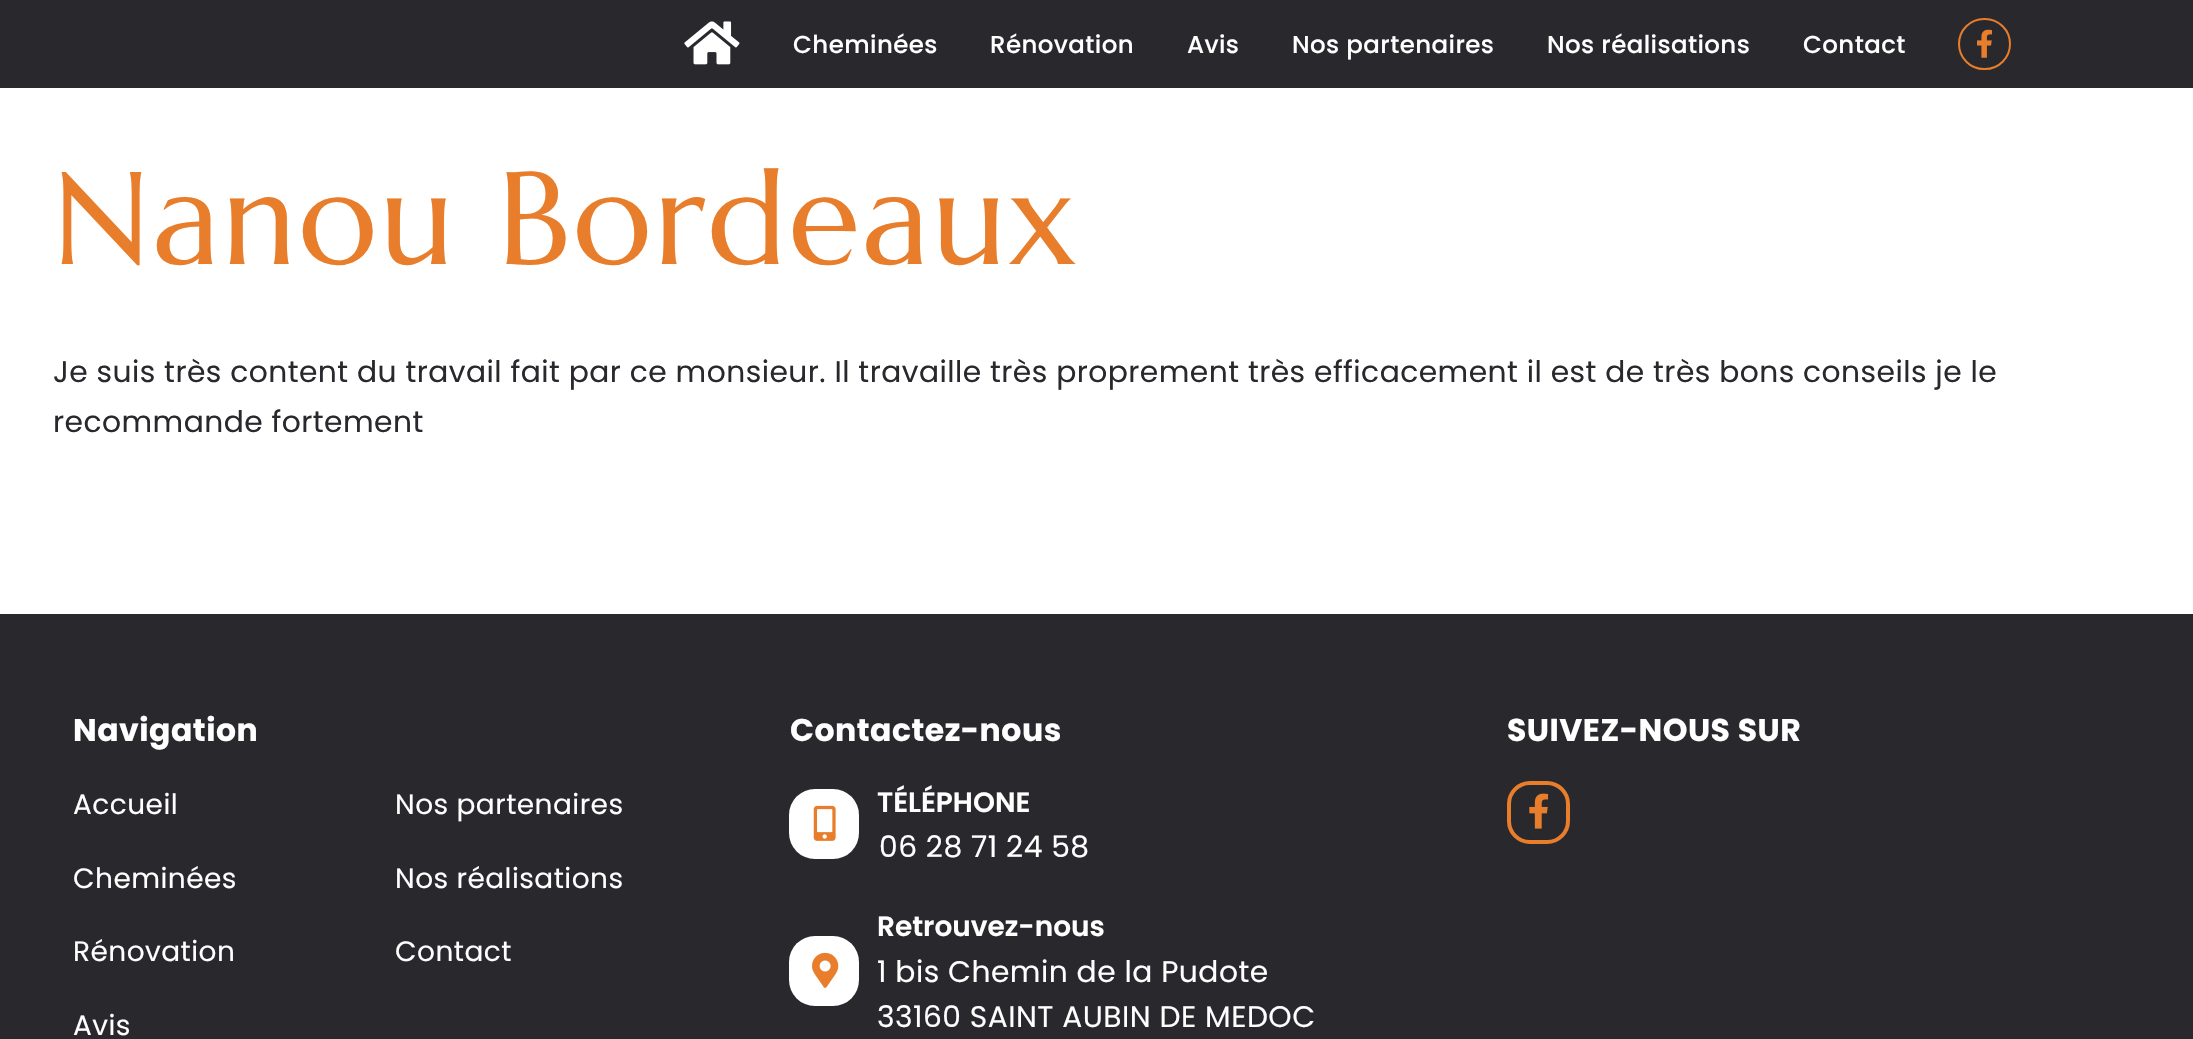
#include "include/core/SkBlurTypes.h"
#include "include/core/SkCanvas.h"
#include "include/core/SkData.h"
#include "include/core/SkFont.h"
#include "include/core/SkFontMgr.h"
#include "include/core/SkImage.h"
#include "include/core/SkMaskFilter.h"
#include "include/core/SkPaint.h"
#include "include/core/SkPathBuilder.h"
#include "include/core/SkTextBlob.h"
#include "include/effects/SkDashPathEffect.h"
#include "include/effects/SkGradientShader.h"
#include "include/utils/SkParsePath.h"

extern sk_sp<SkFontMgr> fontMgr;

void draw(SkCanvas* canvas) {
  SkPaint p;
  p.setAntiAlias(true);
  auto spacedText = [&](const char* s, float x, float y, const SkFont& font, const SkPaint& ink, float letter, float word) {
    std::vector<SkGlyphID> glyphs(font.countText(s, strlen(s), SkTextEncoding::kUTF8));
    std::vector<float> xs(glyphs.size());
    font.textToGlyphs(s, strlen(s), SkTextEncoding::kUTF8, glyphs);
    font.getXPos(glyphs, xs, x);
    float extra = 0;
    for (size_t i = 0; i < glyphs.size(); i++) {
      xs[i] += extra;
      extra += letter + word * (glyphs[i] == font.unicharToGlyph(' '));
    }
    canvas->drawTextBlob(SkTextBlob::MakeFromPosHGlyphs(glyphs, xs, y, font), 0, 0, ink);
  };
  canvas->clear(SK_ColorWHITE);
  p.setColor(SkColorSetRGB(40, 40, 45));
  canvas->drawRect(SkRect::MakeLTRB(0, 0, 2193, 88), p);
  canvas->drawImageRect(SkImages::DeferredFromEncodedData(SkData::MakeFromFileName("images/1.png")), SkRect::MakeLTRB(684, 21, 740, 65), SkSamplingOptions());
  p.setStyle(SkPaint::kStroke_Style);
  p.setStrokeWidth(2);
  p.setColor(SkColorSetRGB(232, 126, 43));
  canvas->drawRoundRect(SkRect::MakeLTRB(1959, 19, 2010, 69), 25, 25, p);
  canvas->drawImageRect(SkImages::DeferredFromEncodedData(SkData::MakeFromFileName("images/2.png")), SkRect::MakeLTRB(1977, 29, 1992, 58), SkSamplingOptions());
  p.setStyle(SkPaint::kFill_Style);
  p.setColor(SkColorSetRGB(40, 40, 45));
  canvas->drawRect(SkRect::MakeLTRB(0, 614, 2193, 1039), p);
  p.setColor(SK_ColorWHITE);
  canvas->drawRoundRect(SkRect::MakeLTRB(789, 789, 859, 859), 26, 26, p);
  canvas->drawImageRect(SkImages::DeferredFromEncodedData(SkData::MakeFromFileName("images/3.png")), SkRect::MakeLTRB(813, 805, 836, 841), SkSamplingOptions());
  canvas->drawRoundRect(SkRect::MakeLTRB(789, 936, 859, 1006), 26, 26, p);
  canvas->drawImageRect(SkImages::DeferredFromEncodedData(SkData::MakeFromFileName("images/4.png")), SkRect::MakeLTRB(812, 952, 839, 988), SkSamplingOptions());
  p.setStyle(SkPaint::kStroke_Style);
  p.setStrokeWidth(4);
  p.setColor(SkColorSetRGB(232, 126, 43));
  canvas->drawRoundRect(SkRect::MakeLTRB(1509, 783, 1568, 842), 21, 21, p);
  canvas->drawImageRect(SkImages::DeferredFromEncodedData(SkData::MakeFromFileName("images/5.png")), SkRect::MakeLTRB(1529, 793, 1549, 829), SkSamplingOptions());
  SkFont font1(fontMgr->matchFamilyStyle("Poppins", SkFontStyle(500, SkFontStyle::kNormal_Width, SkFontStyle::kUpright_Slant)), 24.5f);
  font1.setSubpixel(true);
  p.setStyle(SkPaint::kFill_Style);
  p.setColor(SK_ColorWHITE);
  spacedText("Cheminées", 793, 53, font1, p, 0.4f, 0);
  spacedText("Rénovation", 990, 53, font1, p, 0.4f, 0);
  spacedText("Avis", 1187, 53, font1, p, 0.4f, 0);
  spacedText("Nos partenaires", 1292, 53, font1, p, 0.4f, 0);
  spacedText("Nos réalisations", 1547, 53, font1, p, 0.4f, 0);
  spacedText("Contact", 1803, 53, font1, p, 0.4f, 0);
  SkFont font2(fontMgr->matchFamilyStyle("Marcellus", SkFontStyle::Normal()), 131.25f);
  font2.setSubpixel(true);
  p.setColor(SkColorSetRGB(232, 126, 43));
  spacedText("Nanou Bordeaux", 53, 264, font2, p, 2, 0);
  SkFont font3(fontMgr->matchFamilyStyle("Poppins", SkFontStyle::Normal()), 29.75f);
  font3.setSubpixel(true);
  p.setColor(SkColorSetRGB(40, 40, 45));
  spacedText("Je suis très content du travail fait par ce monsieur. Il travaille très proprement très efficacement il est de très bons conseils je le", 53, 382, font3, p, 0.45f, 0);
  spacedText("recommande fortement", 53, 432, font3, p, 0.45f, 0);
  SkFont font4(fontMgr->matchFamilyStyle("Poppins", SkFontStyle::Bold()), 31.5f);
  font4.setSubpixel(true);
  p.setColor(SK_ColorWHITE);
  spacedText("Navigation", 73, 741, font4, p, 0.5f, 0);
  SkFont font5(fontMgr->matchFamilyStyle("Poppins", SkFontStyle::Normal()), 28);
  font5.setSubpixel(true);
  spacedText("Accueil", 73, 814, font5, p, 0.45f, 0);
  spacedText("Nos partenaires", 395, 814, font5, p, 0.45f, 0);
  spacedText("Cheminées", 73, 888, font5, p, 0.45f, 0);
  spacedText("Nos réalisations", 395, 888, font5, p, 0.45f, 0);
  spacedText("Rénovation", 73, 961, font5, p, 0.45f, 0);
  spacedText("Contact", 395, 961, font5, p, 0.45f, 0);
  spacedText("Avis", 73, 1035, font5, p, 0.45f, 0);
  spacedText("Contactez-nous", 790, 741, font4, p, 0.5f, 0);
  SkFont font6(fontMgr->matchFamilyStyle("Poppins", SkFontStyle(600, SkFontStyle::kNormal_Width, SkFontStyle::kUpright_Slant)), 28);
  font6.setSubpixel(true);
  canvas->drawString("TÉLÉPHONE", 877, 812, font6, p);
  spacedText("06 28 71 24 58", 879, 857, font3, p, 0.45f, 0);
  canvas->drawString("Retrouvez-nous", 877, 936, font6, p);
  spacedText("1 bis Chemin de la Pudote", 877, 982, font3, p, 0.45f, 0);
  spacedText("33160 SAINT AUBIN DE MEDOC", 877, 1027, font3, p, 0.45f, 0);
  spacedText("SUIVEZ-NOUS SUR", 1507, 741, font4, p, 0.5f, 0);
}
